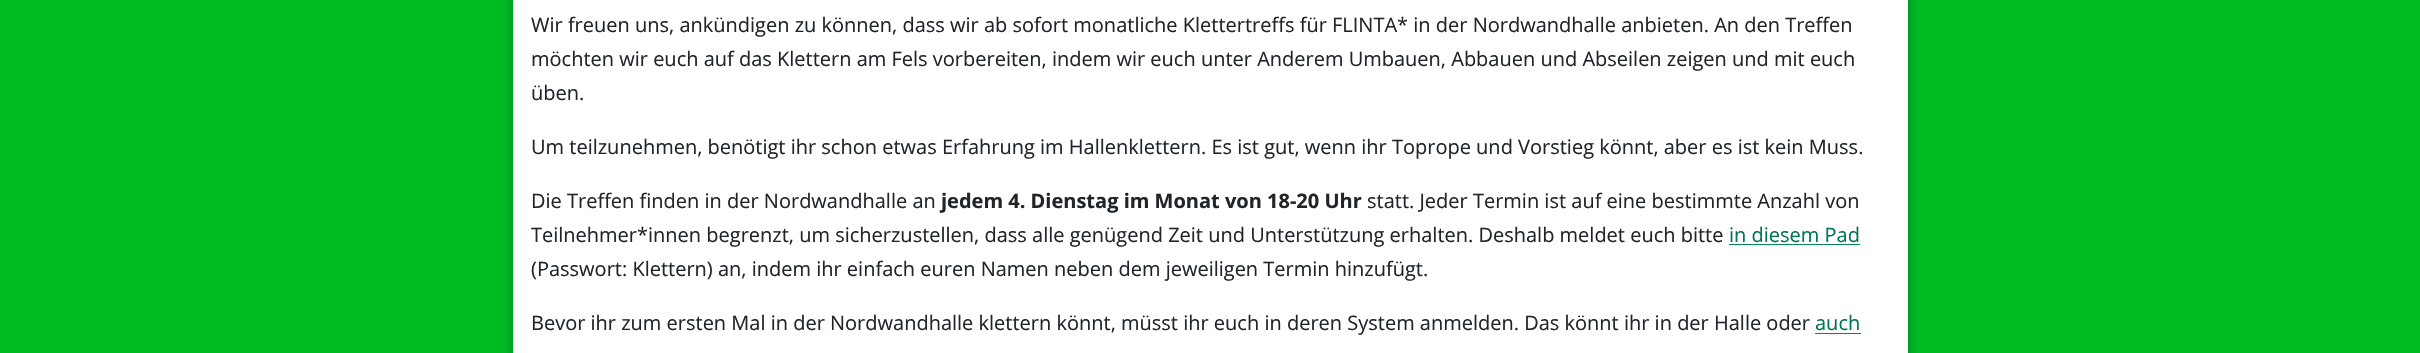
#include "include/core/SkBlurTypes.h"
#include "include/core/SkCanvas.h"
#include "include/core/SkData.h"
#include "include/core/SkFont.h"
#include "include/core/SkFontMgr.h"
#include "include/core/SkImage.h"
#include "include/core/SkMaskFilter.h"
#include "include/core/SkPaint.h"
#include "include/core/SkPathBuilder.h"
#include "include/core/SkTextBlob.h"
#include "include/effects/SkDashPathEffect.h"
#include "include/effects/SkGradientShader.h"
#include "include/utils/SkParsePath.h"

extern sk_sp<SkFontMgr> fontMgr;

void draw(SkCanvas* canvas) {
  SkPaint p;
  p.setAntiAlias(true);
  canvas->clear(SkColorSetRGB(0, 188, 36));
  p.setColor(SkColorSetARGB(84, 0, 0, 0));
  p.setMaskFilter(SkMaskFilter::MakeBlur(kNormal_SkBlurStyle, 5));
  canvas->drawRect(SkRect::MakeLTRB(513, -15, 1908, 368), p);
  p.setMaskFilter(nullptr);
  p.setColor(SK_ColorWHITE);
  canvas->drawRect(SkRect::MakeLTRB(513, 0, 1908, 353), p);
  p.setColor(SkColorSetRGB(6, 129, 97));
  canvas->drawRect(SkRect::MakeLTRB(1729, 244, 1860, 245), p);
  canvas->drawRect(SkRect::MakeLTRB(1815, 333, 1861, 334), p);
  SkFont font1(fontMgr->matchFamilyStyle("Open Sans", SkFontStyle::Normal()), 20);
  font1.setSubpixel(true);
  p.setColor(SkColorSetRGB(33, 37, 41));
  canvas->drawString("Wir freuen uns, ankündigen zu können, dass wir ab sofort monatliche Klettertreffs für FLINTA* in der Nordwandhalle anbieten. An den Treffen", 531, 32, font1, p);
  canvas->drawString("möchten wir euch auf das Klettern am Fels vorbereiten, indem wir euch unter Anderem Umbauen, Abbauen und Abseilen zeigen und mit euch", 531, 66, font1, p);
  canvas->drawString("üben.", 531, 100, font1, p);
  canvas->drawString("Um teilzunehmen, benötigt ihr schon etwas Erfahrung im Hallenklettern. Es ist gut, wenn ihr Toprope und Vorstieg könnt, aber es ist kein Muss.", 531, 154, font1, p);
  canvas->drawString("Die Treffen finden in der Nordwandhalle an", 531, 208, font1, p);
  SkFont font2(fontMgr->matchFamilyStyle("Open Sans", SkFontStyle::Bold()), 20);
  font2.setSubpixel(true);
  canvas->drawString("jedem 4. Dienstag im Monat von 18-20 Uhr", 941, 208, font2, p);
  canvas->drawString("statt. Jeder Termin ist auf eine bestimmte Anzahl von", 1367, 208, font1, p);
  canvas->drawString("Teilnehmer*innen begrenzt, um sicherzustellen, dass alle genügend Zeit und Unterstützung erhalten. Deshalb meldet euch bitte", 531, 242, font1, p);
  p.setColor(SkColorSetRGB(0, 117, 86));
  canvas->drawString("in diesem Pad", 1729, 242, font1, p);
  p.setColor(SkColorSetRGB(33, 37, 41));
  canvas->drawString("(Passwort: Klettern) an, indem ihr einfach euren Namen neben dem jeweiligen Termin hinzufügt.", 531, 276, font1, p);
  canvas->drawString("Bevor ihr zum ersten Mal in der Nordwandhalle klettern könnt, müsst ihr euch in deren System anmelden. Das könnt ihr in der Halle oder", 531, 330, font1, p);
  p.setColor(SkColorSetRGB(0, 117, 86));
  canvas->drawString("auch", 1815, 330, font1, p);
}
